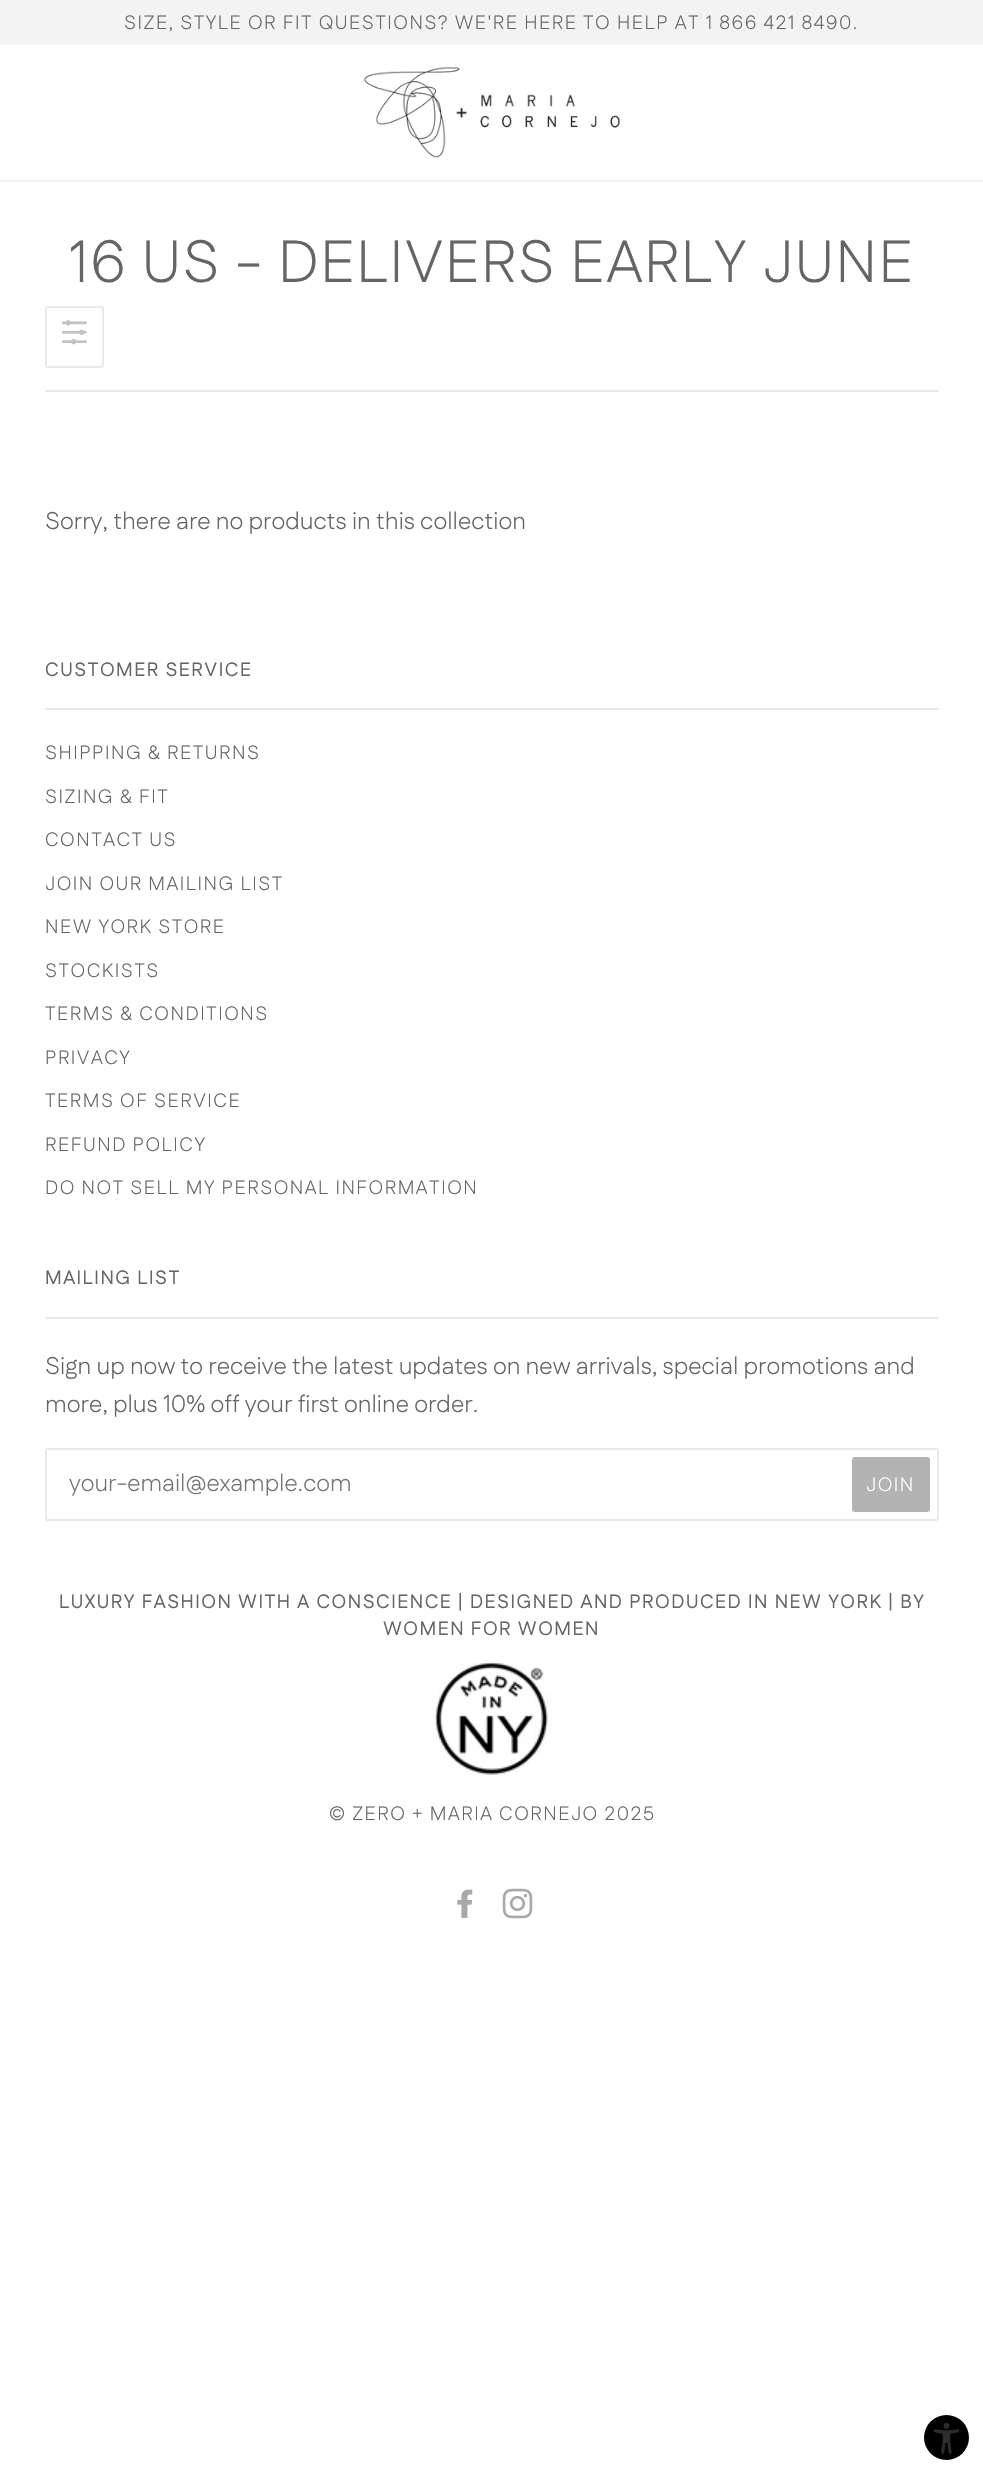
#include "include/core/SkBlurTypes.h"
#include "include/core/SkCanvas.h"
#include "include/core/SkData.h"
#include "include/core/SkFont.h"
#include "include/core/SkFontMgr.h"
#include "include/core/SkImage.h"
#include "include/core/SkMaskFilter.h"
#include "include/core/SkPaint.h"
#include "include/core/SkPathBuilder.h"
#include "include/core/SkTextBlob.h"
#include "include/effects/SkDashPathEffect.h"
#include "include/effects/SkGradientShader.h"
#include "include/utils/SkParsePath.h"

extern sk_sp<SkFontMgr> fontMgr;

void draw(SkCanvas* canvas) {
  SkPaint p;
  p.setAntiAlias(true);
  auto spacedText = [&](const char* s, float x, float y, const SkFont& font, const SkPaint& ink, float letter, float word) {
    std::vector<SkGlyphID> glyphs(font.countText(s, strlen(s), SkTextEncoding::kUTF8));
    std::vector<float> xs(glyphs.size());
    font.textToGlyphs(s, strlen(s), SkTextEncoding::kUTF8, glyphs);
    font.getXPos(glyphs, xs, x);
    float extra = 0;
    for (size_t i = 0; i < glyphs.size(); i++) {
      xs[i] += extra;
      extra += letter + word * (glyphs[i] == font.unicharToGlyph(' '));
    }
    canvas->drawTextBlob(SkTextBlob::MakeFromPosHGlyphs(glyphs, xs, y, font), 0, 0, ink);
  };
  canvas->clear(SK_ColorWHITE);
  p.setColor(SkColorSetRGB(243, 243, 243));
  canvas->drawRect(SkRect::MakeLTRB(0, 0, 983, 45), p);
  canvas->drawRect(SkRect::MakeLTRB(0, 180, 983, 182), p);
  canvas->drawImageRect(SkImages::DeferredFromEncodedData(SkData::MakeFromFileName("images/1.png")), SkRect::MakeLTRB(364, 67, 620, 158), SkSamplingOptions());
  p.setStyle(SkPaint::kStroke_Style);
  p.setStrokeWidth(2);
  p.setColor(SkColorSetRGB(233, 233, 233));
  canvas->drawRoundRect(SkRect::MakeLTRB(46, 307, 103, 367), 2, 2, p);
  canvas->drawImageRect(SkImages::DeferredFromEncodedData(SkData::MakeFromFileName("images/2.png")), SkRect::MakeLTRB(62, 320, 87, 345), SkSamplingOptions());
  p.setStyle(SkPaint::kFill_Style);
  canvas->drawRect(SkRect::MakeLTRB(45, 390, 939, 392), p);
  p.setColor(SkColorSetRGB(232, 232, 232));
  canvas->drawRect(SkRect::MakeLTRB(45, 708, 939, 710), p);
  canvas->drawRect(SkRect::MakeLTRB(45, 1317, 939, 1319), p);
  p.setStyle(SkPaint::kStroke_Style);
  p.setColor(SkColorSetRGB(233, 233, 233));
  canvas->drawRoundRect(SkRect::MakeLTRB(46, 1449, 938, 1520), 2, 2, p);
  p.setStyle(SkPaint::kFill_Style);
  p.setColor(SkColorSetRGB(179, 179, 179));
  canvas->drawRoundRect(SkRect::MakeLTRB(852, 1457, 930, 1512), 3, 3, p);
  canvas->drawImageRect(SkImages::DeferredFromEncodedData(SkData::MakeFromFileName("images/3.png")), SkRect::MakeLTRB(432, 1662, 552, 1775), SkSamplingOptions());
  canvas->drawImageRect(SkImages::DeferredFromEncodedData(SkData::MakeFromFileName("images/4.png")), SkRect::MakeLTRB(457, 1889, 473, 1918), SkSamplingOptions());
  canvas->drawImageRect(SkImages::DeferredFromEncodedData(SkData::MakeFromFileName("images/5.png")), SkRect::MakeLTRB(502, 1888, 533, 1919), SkSamplingOptions());
  p.setColor(SK_ColorBLACK);
  canvas->drawCircle(946.5f, 2437.5f, 22.5f, p);
  canvas->drawImageRect(SkImages::DeferredFromEncodedData(SkData::MakeFromFileName("images/6.png")), SkRect::MakeLTRB(933, 2423, 960, 2454), SkSamplingOptions());
  SkFont font1(fontMgr->matchFamilyStyle("Fustat", SkFontStyle(300, SkFontStyle::kNormal_Width, SkFontStyle::kUpright_Slant)), 19.3f);
  font1.setSubpixel(true);
  p.setColor(SkColorSetRGB(101, 101, 101));
  spacedText("SIZE, STYLE OR FIT QUESTIONS? WE'RE HERE TO HELP AT 1 866 421 8490.", 124, 29, font1, p, 1.5f, 0);
  SkFont font2(fontMgr->matchFamilyStyle("Fustat", SkFontStyle(300, SkFontStyle::kNormal_Width, SkFontStyle::kUpright_Slant)), 59.4f);
  font2.setSubpixel(true);
  spacedText("16 US - DELIVERS EARLY JUNE", 69, 282, font2, p, 1.5f, 0);
  SkFont font3(fontMgr->matchFamilyStyle("Fustat", SkFontStyle(300, SkFontStyle::kNormal_Width, SkFontStyle::kUpright_Slant)), 24.15f);
  font3.setSubpixel(true);
  canvas->drawString("Sorry, there are no products in this collection", 45, 529, font3, p);
  SkFont font4(fontMgr->matchFamilyStyle("Fustat", SkFontStyle::Normal()), 19.3f);
  font4.setSubpixel(true);
  spacedText("CUSTOMER SERVICE", 45, 676, font4, p, 1.5f, 0);
  spacedText("SHIPPING & RETURNS", 45, 759, font1, p, 1.5f, 0);
  spacedText("SIZING & FIT", 45, 803, font1, p, 1.5f, 0);
  spacedText("CONTACT US", 45, 846, font1, p, 1.5f, 0);
  spacedText("JOIN OUR MAILING LIST", 45, 890, font1, p, 1.5f, 0);
  spacedText("NEW YORK STORE", 45, 933, font1, p, 1.5f, 0);
  spacedText("STOCKISTS", 45, 977, font1, p, 1.5f, 0);
  spacedText("TERMS & CONDITIONS", 45, 1020, font1, p, 1.5f, 0);
  spacedText("PRIVACY", 45, 1064, font1, p, 1.5f, 0);
  spacedText("TERMS OF SERVICE", 45, 1107, font1, p, 1.5f, 0);
  spacedText("REFUND POLICY", 45, 1151, font1, p, 1.5f, 0);
  spacedText("DO NOT SELL MY PERSONAL INFORMATION", 45, 1194, font1, p, 1.5f, 0);
  spacedText("MAILING LIST", 45, 1284, font4, p, 1.5f, 0);
  canvas->drawString("Sign up now to receive the latest updates on new arrivals, special promotions and", 45, 1374, font3, p);
  canvas->drawString("more, plus 10% off your first online order.", 45, 1412, font3, p);
  SkFont font5(fontMgr->matchFamilyStyle("Fustat", SkFontStyle(300, SkFontStyle::kNormal_Width, SkFontStyle::kUpright_Slant)), 24);
  font5.setSubpixel(true);
  p.setColor(SkColorSetRGB(117, 117, 117));
  canvas->drawString("your-email@example.com", 69, 1491, font5, p);
  p.setColor(SK_ColorWHITE);
  spacedText("JOIN", 866, 1491, font1, p, 1.5f, 0);
  p.setColor(SkColorSetRGB(101, 101, 101));
  spacedText("LUXURY FASHION WITH A CONSCIENCE | DESIGNED AND PRODUCED IN NEW YORK | BY", 59, 1608, font4, p, 1.5f, 0);
  spacedText("WOMEN FOR WOMEN", 383, 1635, font4, p, 1.5f, 0);
  spacedText("© ZERO + MARIA CORNEJO 2025", 329, 1820, font1, p, 1.5f, 0);
}
